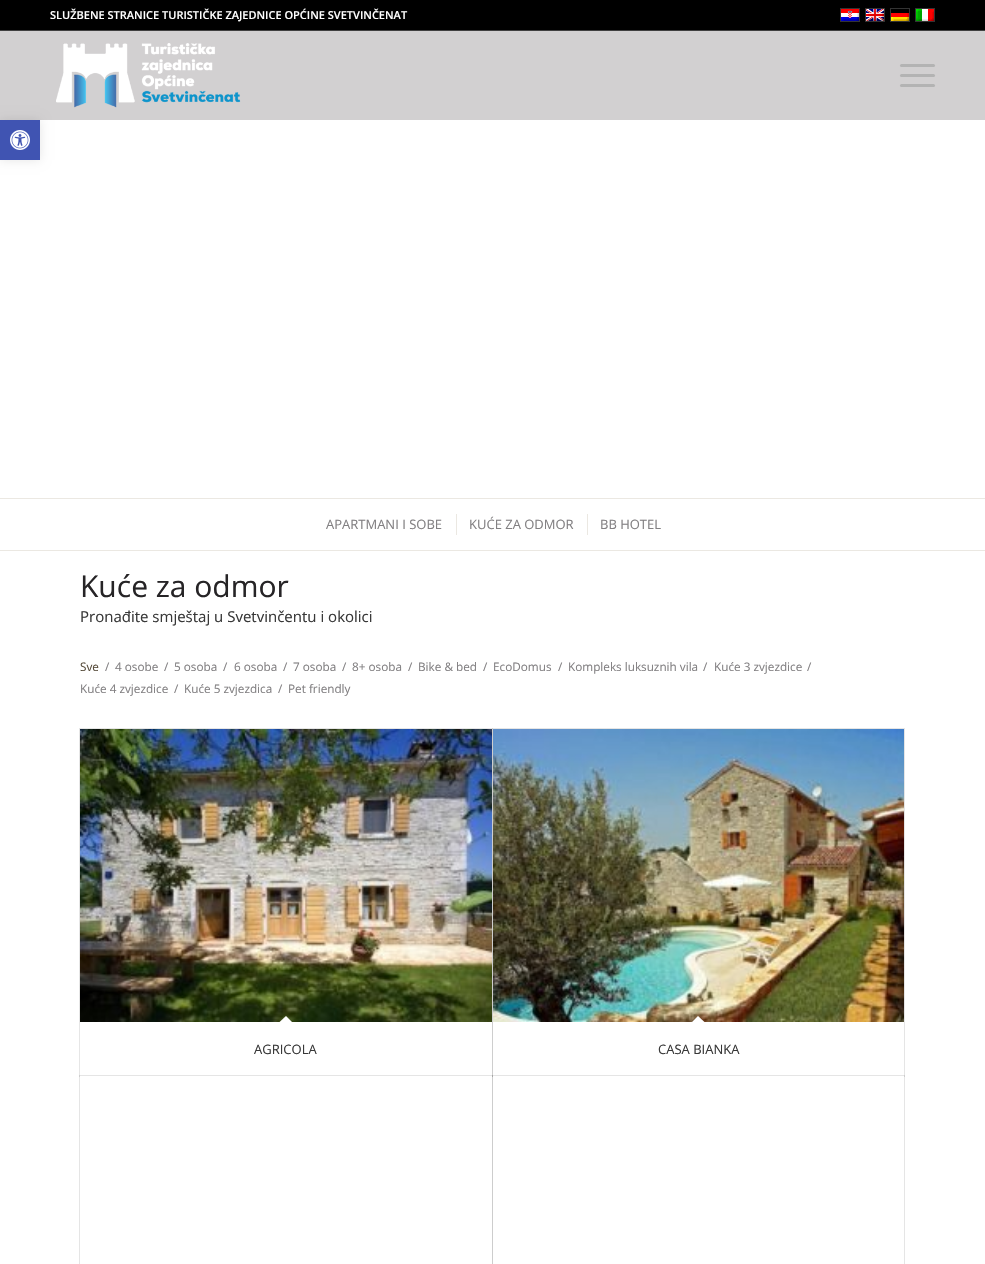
#include "include/core/SkBlurTypes.h"
#include "include/core/SkCanvas.h"
#include "include/core/SkData.h"
#include "include/core/SkFont.h"
#include "include/core/SkFontMgr.h"
#include "include/core/SkImage.h"
#include "include/core/SkMaskFilter.h"
#include "include/core/SkPaint.h"
#include "include/core/SkPathBuilder.h"
#include "include/core/SkTextBlob.h"
#include "include/effects/SkDashPathEffect.h"
#include "include/effects/SkGradientShader.h"
#include "include/utils/SkParsePath.h"

extern sk_sp<SkFontMgr> fontMgr;

void draw(SkCanvas* canvas) {
  SkPaint p;
  p.setAntiAlias(true);
  canvas->clear(SK_ColorWHITE);
  p.setColor(SkColorSetRGB(210, 208, 209));
  canvas->drawRect(SkRect::MakeLTRB(0, 31, 985, 120), p);
  p.setColor(SkColorSetARGB(26, 0, 0, 0));
  p.setMaskFilter(SkMaskFilter::MakeBlur(kNormal_SkBlurStyle, 5));
  canvas->drawRect(SkRect::MakeLTRB(0, 120, 40, 160), p);
  p.setMaskFilter(nullptr);
  p.setColor(SkColorSetRGB(64, 84, 178));
  canvas->drawRect(SkRect::MakeLTRB(0, 120, 40, 160), p);
  canvas->drawImageRect(SkImages::DeferredFromEncodedData(SkData::MakeFromFileName("images/1.png")), SkRect::MakeLTRB(10, 130, 30, 150), SkSamplingOptions());
  p.setColor(SK_ColorBLACK);
  canvas->drawRect(SkRect::MakeLTRB(0, 0, 985, 30), p);
  p.setColor(SkColorSetRGB(64, 64, 64));
  canvas->drawRect(SkRect::MakeLTRB(0, 30, 985, 31), p);
  p.setStyle(SkPaint::kStroke_Style);
  p.setStrokeWidth(1);
  p.setColor(SkColorSetRGB(51, 51, 51));
  canvas->drawRect(SkRect::MakeLTRB(840.5f, 8.5f, 859.5f, 21.5f), p);
  canvas->drawImageRect(SkImages::DeferredFromEncodedData(SkData::MakeFromFileName("images/2.png")), SkRect::MakeLTRB(841, 9, 859, 21), SkSamplingOptions());
  canvas->drawRect(SkRect::MakeLTRB(865.5f, 8.5f, 884.5f, 21.5f), p);
  canvas->drawImageRect(SkImages::DeferredFromEncodedData(SkData::MakeFromFileName("images/3.png")), SkRect::MakeLTRB(866, 9, 884, 21), SkSamplingOptions());
  canvas->drawRect(SkRect::MakeLTRB(890.5f, 8.5f, 909.5f, 21.5f), p);
  canvas->drawImageRect(SkImages::DeferredFromEncodedData(SkData::MakeFromFileName("images/4.png")), SkRect::MakeLTRB(891, 13, 909, 21), SkSamplingOptions());
  canvas->drawRect(SkRect::MakeLTRB(915.5f, 8.5f, 934.5f, 21.5f), p);
  canvas->drawImageRect(SkImages::DeferredFromEncodedData(SkData::MakeFromFileName("images/5.png")), SkRect::MakeLTRB(916, 9, 934, 21), SkSamplingOptions());
  canvas->drawImageRect(SkImages::DeferredFromEncodedData(SkData::MakeFromFileName("images/6.png")), SkRect::MakeLTRB(56, 43, 241, 108), SkSamplingOptions());
  p.setStyle(SkPaint::kFill_Style);
  p.setColor(SkColorSetRGB(179, 179, 179));
  canvas->drawRoundRect(SkRect::MakeLTRB(900, 74, 935, 77), 1.5f, 1.5f, p);
  canvas->drawRoundRect(SkRect::MakeLTRB(900, 64, 935, 67), 1.5f, 1.5f, p);
  canvas->drawRoundRect(SkRect::MakeLTRB(900, 84, 935, 87), 1.5f, 1.5f, p);
  p.setColor(SkColorSetRGB(235, 232, 226));
  canvas->drawRect(SkRect::MakeLTRB(0, 498, 985, 499), p);
  canvas->drawRect(SkRect::MakeLTRB(0, 550, 985, 551), p);
  canvas->drawRect(SkRect::MakeLTRB(456, 514, 457, 535), p);
  canvas->drawRect(SkRect::MakeLTRB(587, 514, 588, 535), p);
  p.setStyle(SkPaint::kStroke_Style);
  p.setColor(SkColorSetRGB(230, 230, 230));
  canvas->drawRect(SkRect::MakeLTRB(79.5f, 728.5f, 492.5f, 1076.5f), p);
  canvas->drawImageRect(SkImages::DeferredFromEncodedData(SkData::MakeFromFileName("images/7.png")), SkRect::MakeLTRB(80, 729, 492, 1022), SkSamplingOptions());
  p.setStyle(SkPaint::kFill_Style);
  p.setColor(SK_ColorWHITE);
  canvas->drawPath(SkPathBuilder().moveTo(286, 1016).lineTo(293, 1023).lineTo(286, 1030).lineTo(278.5f, 1023).close().detach(), p);
  p.setStyle(SkPaint::kStroke_Style);
  p.setColor(SkColorSetARGB(26, 0, 0, 0));
  canvas->drawRect(SkRect::MakeLTRB(492.5f, 728.5f, 904.5f, 1076.5f), p);
  canvas->drawImageRect(SkImages::DeferredFromEncodedData(SkData::MakeFromFileName("images/8.png")), SkRect::MakeLTRB(493, 729, 904, 1022), SkSamplingOptions());
  p.setStyle(SkPaint::kFill_Style);
  p.setColor(SK_ColorWHITE);
  canvas->drawPath(SkPathBuilder().moveTo(698, 1016).lineTo(705.5f, 1023).lineTo(698, 1030).lineTo(691, 1023).close().detach(), p);
  p.setStyle(SkPaint::kStroke_Style);
  p.setColor(SkColorSetARGB(26, 0, 0, 0));
  canvas->drawRect(SkRect::MakeLTRB(79.5f, 1075.5f, 492.5f, 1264.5f), p);
  p.setStyle(SkPaint::kFill_Style);
  p.setColor(SK_ColorWHITE);
  canvas->drawRect(SkRect::MakeLTRB(80, 1076, 492, 1077), p);
  p.setStyle(SkPaint::kStroke_Style);
  p.setColor(SkColorSetARGB(26, 0, 0, 0));
  canvas->drawRect(SkRect::MakeLTRB(492.5f, 1075.5f, 904.5f, 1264.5f), p);
  p.setStyle(SkPaint::kFill_Style);
  p.setColor(SK_ColorWHITE);
  canvas->drawRect(SkRect::MakeLTRB(493, 1076, 904, 1077), p);
  SkFont font1(fontMgr->matchFamilyStyle("Open Sans", SkFontStyle(600, SkFontStyle::kNormal_Width, SkFontStyle::kUpright_Slant)), 11);
  font1.setSubpixel(true);
  canvas->drawString("SLUŽBENE STRANICE TURISTIČKE ZAJEDNICE OPĆINE SVETVINČENAT", 50, 19, font1, p);
  SkFont font2(fontMgr->matchFamilyStyle("Open Sans", SkFontStyle::Normal()), 13);
  font2.setSubpixel(true);
  p.setColor(SkColorSetRGB(130, 128, 130));
  canvas->drawString("APARTMANI I SOBE", 326, 529, font2, p);
  canvas->drawString("KUĆE ZA ODMOR", 469, 529, font2, p);
  canvas->drawString("BB HOTEL", 600, 529, font2, p);
  SkFont font3(fontMgr->matchFamilyStyle("Open Sans", SkFontStyle::Normal()), 30);
  font3.setSubpixel(true);
  p.setColor(SkColorSetRGB(38, 36, 38));
  canvas->drawString("Kuće za odmor", 80, 597, font3, p);
  SkFont font4(fontMgr->matchFamilyStyle("Open Sans", SkFontStyle::Normal()), 15);
  font4.setSubpixel(true);
  p.setColor(SkColorSetRGB(56, 56, 56));
  canvas->drawString("Pronađite smještaj u Svetvinčentu i okolici", 80, 622, font4, p);
  SkFont font5(fontMgr->matchFamilyStyle("Open Sans", SkFontStyle::Normal()), 11.75f);
  font5.setSubpixel(true);
  p.setColor(SkColorSetRGB(87, 76, 59));
  canvas->drawString("Sve", 80, 671, font5, p);
  p.setColor(SkColorSetRGB(130, 128, 130));
  canvas->drawString("/", 105, 671, font5, p);
  canvas->drawString("4 osobe", 115, 671, font5, p);
  canvas->drawString("/", 164, 671, font5, p);
  canvas->drawString("5 osoba", 174, 671, font5, p);
  canvas->drawString("/", 223, 671, font5, p);
  canvas->drawString("6 osoba", 234, 671, font5, p);
  canvas->drawString("/", 283, 671, font5, p);
  canvas->drawString("7 osoba", 293, 671, font5, p);
  canvas->drawString("/", 342, 671, font5, p);
  canvas->drawString("8+ osoba", 352, 671, font5, p);
  canvas->drawString("/", 408, 671, font5, p);
  canvas->drawString("Bike & bed", 418, 671, font5, p);
  canvas->drawString("/", 483, 671, font5, p);
  canvas->drawString("EcoDomus", 493, 671, font5, p);
  canvas->drawString("/", 558, 671, font5, p);
  canvas->drawString("Kompleks luksuznih vila", 568, 671, font5, p);
  canvas->drawString("/", 703, 671, font5, p);
  canvas->drawString("Kuće 3 zvjezdice", 714, 671, font5, p);
  canvas->drawString("/", 807, 671, font5, p);
  canvas->drawString("Kuće 4 zvjezdice", 80, 693, font5, p);
  canvas->drawString("/", 174, 693, font5, p);
  canvas->drawString("Kuće 5 zvjezdica", 184, 693, font5, p);
  canvas->drawString("/", 278, 693, font5, p);
  canvas->drawString("Pet friendly", 288, 693, font5, p);
  p.setColor(SkColorSetRGB(56, 56, 56));
  canvas->drawString("AGRICOLA", 254, 1054, font2, p);
  canvas->drawString("CASA BIANKA", 658, 1054, font2, p);
}
